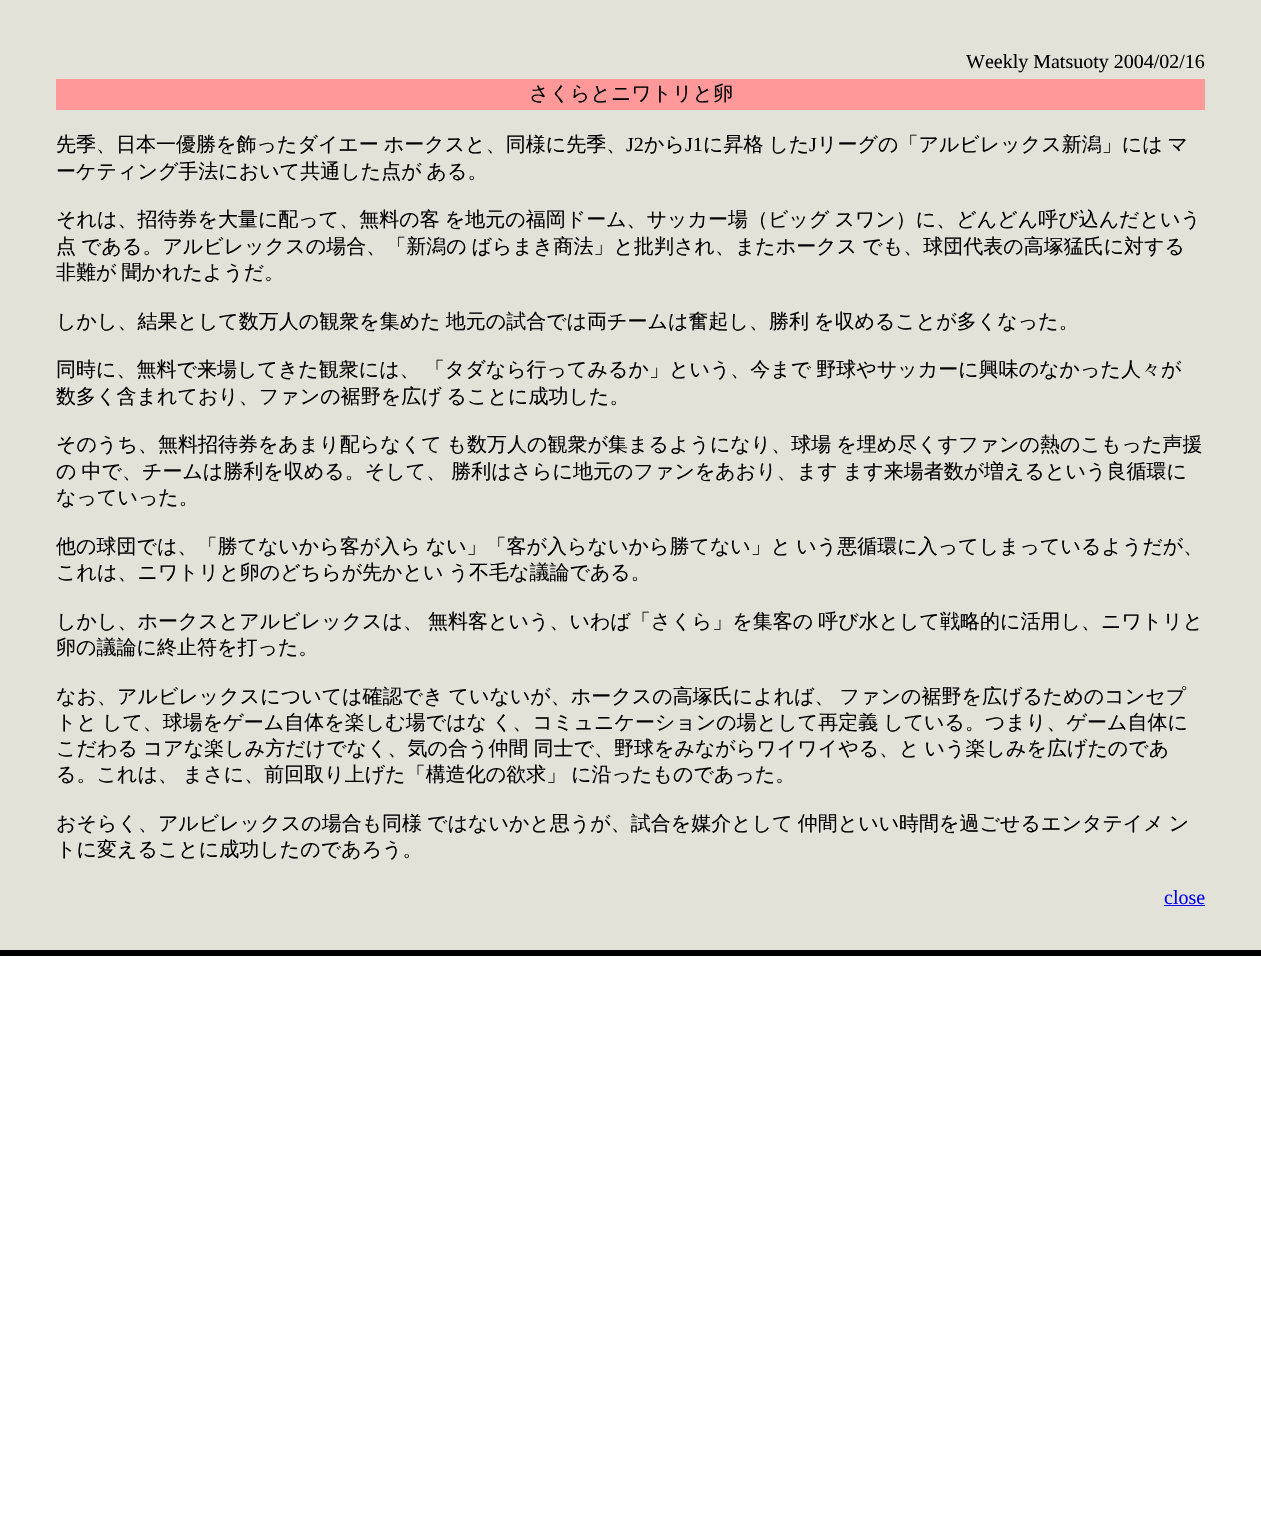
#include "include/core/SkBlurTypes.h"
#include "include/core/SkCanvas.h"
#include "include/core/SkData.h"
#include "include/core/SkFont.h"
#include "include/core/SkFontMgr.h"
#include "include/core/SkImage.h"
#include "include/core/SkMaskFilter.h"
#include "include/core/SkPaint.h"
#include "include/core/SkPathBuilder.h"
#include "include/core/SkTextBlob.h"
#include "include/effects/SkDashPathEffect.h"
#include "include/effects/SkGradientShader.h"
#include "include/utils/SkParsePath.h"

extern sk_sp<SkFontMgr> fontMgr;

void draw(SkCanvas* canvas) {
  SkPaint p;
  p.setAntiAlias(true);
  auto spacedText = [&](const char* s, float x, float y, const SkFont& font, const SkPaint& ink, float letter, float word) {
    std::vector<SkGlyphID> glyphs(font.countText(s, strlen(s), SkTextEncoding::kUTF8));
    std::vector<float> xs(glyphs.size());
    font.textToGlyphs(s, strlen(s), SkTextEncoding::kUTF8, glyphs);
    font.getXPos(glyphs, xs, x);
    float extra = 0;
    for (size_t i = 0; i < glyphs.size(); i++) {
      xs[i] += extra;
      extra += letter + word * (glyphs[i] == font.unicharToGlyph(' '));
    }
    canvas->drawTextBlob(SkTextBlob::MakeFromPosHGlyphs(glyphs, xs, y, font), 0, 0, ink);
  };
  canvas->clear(SK_ColorWHITE);
  p.setColor(SkColorSetRGB(227, 226, 217));
  canvas->drawRect(SkRect::MakeLTRB(0, 0, 1261, 950), p);
  p.setColor(SkColorSetRGB(255, 153, 153));
  canvas->drawRect(SkRect::MakeLTRB(56, 79, 1205, 110), p);
  p.setColor(SkColorSetRGB(0, 0, 238));
  canvas->drawRect(SkRect::MakeLTRB(1164, 905, 1205, 906), p);
  p.setColor(SK_ColorBLACK);
  canvas->drawRect(SkRect::MakeLTRB(0, 950, 1261, 956), p);
  SkFont font1(fontMgr->matchFamilyStyle("Liberation Serif", SkFontStyle::Normal()), 20);
  font1.setSubpixel(true);
  canvas->drawString("Weekly Matsuoty 2004/02/16", 966, 68, font1, p);
  SkFont font2(fontMgr->matchFamilyStyle("WenQuanYi Zen Hei", SkFontStyle(500, SkFontStyle::kNormal_Width, SkFontStyle::kUpright_Slant)), 20);
  font2.setSubpixel(true);
  canvas->drawString("さくらとニワトリと卵", 529, 100, font2, p);
  spacedText("先季、日本一優勝を飾ったダイエー ホークスと、同様に先季、", 56, 151, font2, p, 0, -1);
  canvas->drawString("J2", 626, 151, font1, p);
  canvas->drawString("から", 644, 151, font2, p);
  canvas->drawString("J1", 685, 151, font1, p);
  spacedText("に昇格 した", 703, 151, font2, p, 0, -1);
  canvas->drawString("J", 809, 151, font1, p);
  spacedText("リーグの「アルビレックス新潟」には マ", 817, 151, font2, p, 0, -1);
  spacedText("ーケティング手法において共通した点が ある。", 56, 178, font2, p, 0, -1);
  spacedText("それは、招待券を大量に配って、無料の客 を地元の福岡ドーム、サッカー場（ビッグ スワン）に、どんどん呼び込んだという", 56, 226, font2, p, 0, -1);
  spacedText("点 である。アルビレックスの場合、「新潟の ばらまき商法」と批判され、またホークス でも、球団代表の高塚猛氏に対する", 56, 253, font2, p, 0, -1);
  spacedText("非難が 聞かれたようだ。", 56, 279, font2, p, 0, -1);
  spacedText("しかし、結果として数万人の観衆を集めた 地元の試合では両チームは奮起し、勝利 を収めることが多くなった。", 56, 328, font2, p, 0, -1);
  spacedText("同時に、無料で来場してきた観衆には、 「タダなら行ってみるか」という、今まで 野球やサッカーに興味のなかった人々が", 56, 376, font2, p, 0, -1);
  spacedText("数多く含まれており、ファンの裾野を広げ ることに成功した。", 56, 403, font2, p, 0, -1);
  spacedText("そのうち、無料招待券をあまり配らなくて も数万人の観衆が集まるようになり、球場 を埋め尽くすファンの熱のこもった声援", 56, 451, font2, p, 0, -1);
  spacedText("の 中で、チームは勝利を収める。そして、 勝利はさらに地元のファンをあおり、ます ます来場者数が増えるという良循環に", 56, 478, font2, p, 0, -1);
  canvas->drawString("なっていった。", 56, 504, font2, p);
  spacedText("他の球団では、「勝てないから客が入ら ない」「客が入らないから勝てない」と いう悪循環に入ってしまっているようだが、", 56, 553, font2, p, 0, -1);
  spacedText("これは、ニワトリと卵のどちらが先かとい う不毛な議論である。", 56, 579, font2, p, 0, -1);
  spacedText("しかし、ホークスとアルビレックスは、 無料客という、いわば「さくら」を集客の 呼び水として戦略的に活用し、ニワトリと", 56, 628, font2, p, 0, -1);
  canvas->drawString("卵の議論に終止符を打った。", 56, 654, font2, p);
  spacedText("なお、アルビレックスについては確認でき ていないが、ホークスの高塚氏によれば、 ファンの裾野を広げるためのコンセプ", 56, 703, font2, p, 0, -1);
  spacedText("トと して、球場をゲーム自体を楽しむ場ではな く、コミュニケーションの場として再定義 している。つまり、ゲーム自体に", 56, 729, font2, p, 0, -1);
  spacedText("こだわる コアな楽しみ方だけでなく、気の合う仲間 同士で、野球をみながらワイワイやる、と いう楽しみを広げたのであ", 56, 755, font2, p, 0, -1);
  spacedText("る。これは、 まさに、前回取り上げた「構造化の欲求」 に沿ったものであった。", 56, 781, font2, p, 0, -1);
  spacedText("おそらく、アルビレックスの場合も同様 ではないかと思うが、試合を媒介として 仲間といい時間を過ごせるエンタテイメ ン", 56, 830, font2, p, 0, -1);
  canvas->drawString("トに変えることに成功したのであろう。", 56, 856, font2, p);
  p.setColor(SkColorSetRGB(0, 0, 238));
  canvas->drawString("close", 1164, 904, font1, p);
}
